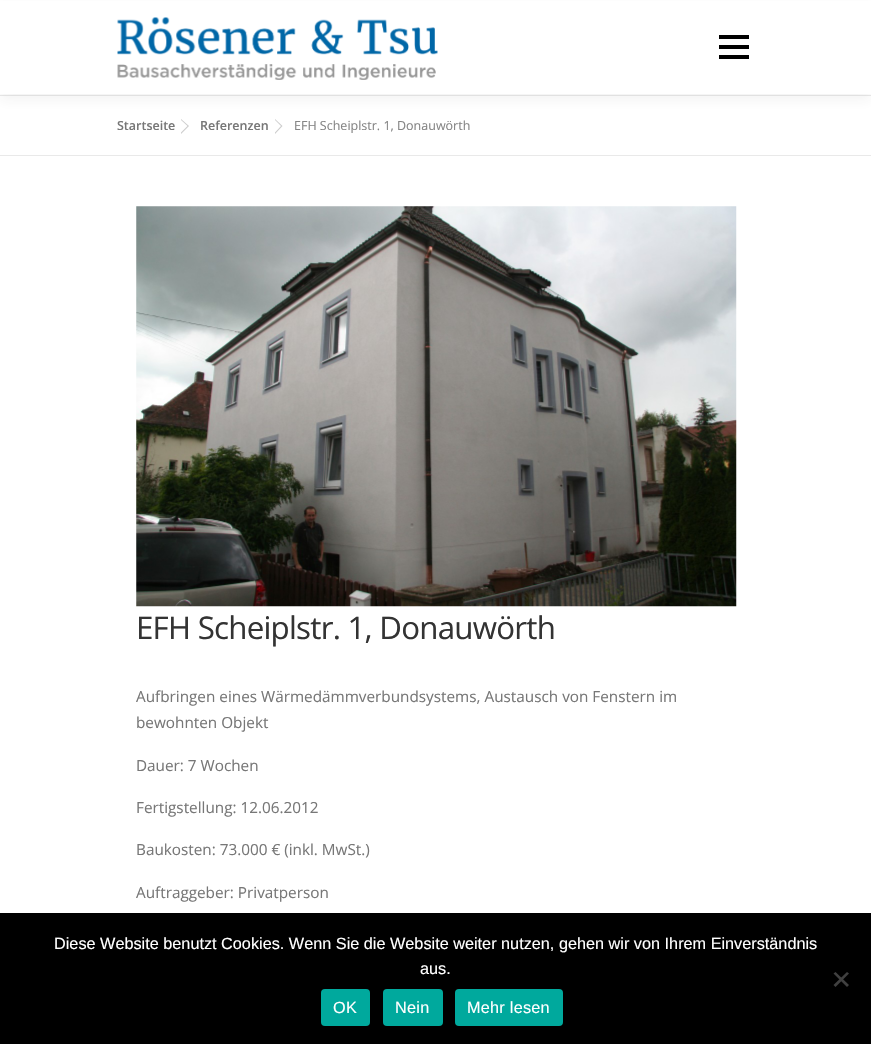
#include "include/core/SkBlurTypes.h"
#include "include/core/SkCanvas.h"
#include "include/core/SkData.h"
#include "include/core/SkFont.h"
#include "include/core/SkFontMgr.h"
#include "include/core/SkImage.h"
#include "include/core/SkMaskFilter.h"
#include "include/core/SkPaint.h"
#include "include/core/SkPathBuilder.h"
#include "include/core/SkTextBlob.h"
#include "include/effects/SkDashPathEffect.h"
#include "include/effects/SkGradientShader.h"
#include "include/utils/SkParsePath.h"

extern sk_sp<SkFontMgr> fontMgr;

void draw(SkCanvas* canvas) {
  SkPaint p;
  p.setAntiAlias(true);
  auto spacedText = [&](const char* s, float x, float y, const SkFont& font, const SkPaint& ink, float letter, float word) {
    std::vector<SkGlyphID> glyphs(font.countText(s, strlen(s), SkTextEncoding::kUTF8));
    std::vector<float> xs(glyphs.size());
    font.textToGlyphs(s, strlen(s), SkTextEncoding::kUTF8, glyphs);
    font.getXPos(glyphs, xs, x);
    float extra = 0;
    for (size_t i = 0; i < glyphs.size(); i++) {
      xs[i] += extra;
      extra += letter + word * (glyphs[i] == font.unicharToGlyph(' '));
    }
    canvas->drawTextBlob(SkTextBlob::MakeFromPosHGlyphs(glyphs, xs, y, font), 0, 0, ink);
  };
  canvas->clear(SK_ColorWHITE);
  p.setColor(SkColorSetRGB(233, 233, 233));
  canvas->drawRect(SkRect::MakeLTRB(0, 95, 871, 96), p);
  p.setColor(SkColorSetARGB(15, 50, 50, 50));
  p.setMaskFilter(SkMaskFilter::MakeBlur(kNormal_SkBlurStyle, 6));
  canvas->drawRect(SkRect::MakeLTRB(0, 6, 871, 100), p);
  p.setMaskFilter(nullptr);
  p.setColor(SK_ColorWHITE);
  canvas->drawRect(SkRect::MakeLTRB(0, 1, 871, 94), p);
  canvas->drawImageRect(SkImages::DeferredFromEncodedData(SkData::MakeFromFileName("images/1.png")), SkRect::MakeLTRB(117, 17, 438, 80), SkSamplingOptions());
  p.setColor(SK_ColorBLACK);
  canvas->drawRect(SkRect::MakeLTRB(719, 45, 749, 49), p);
  canvas->drawRect(SkRect::MakeLTRB(719, 35, 749, 39), p);
  canvas->drawRect(SkRect::MakeLTRB(719, 55, 749, 59), p);
  p.setColor(SkColorSetRGB(233, 233, 233));
  canvas->drawRect(SkRect::MakeLTRB(0, 155, 871, 156), p);
  p.setColor(SkColorSetRGB(204, 204, 204));
  canvas->drawPath(SkPathBuilder().moveTo(181, 134).lineTo(181, 119).lineTo(189, 126).close().detach(), p);
  p.setColor(SK_ColorWHITE);
  canvas->drawPath(SkPathBuilder().moveTo(181, 132.5f).lineTo(181, 120).lineTo(187.5f, 126).close().detach(), p);
  p.setColor(SkColorSetRGB(204, 204, 204));
  canvas->drawPath(SkPathBuilder().moveTo(275, 134).lineTo(275, 119).lineTo(282.5f, 126).close().detach(), p);
  p.setColor(SK_ColorWHITE);
  canvas->drawPath(SkPathBuilder().moveTo(275, 132.5f).lineTo(275, 120).lineTo(281, 126).close().detach(), p);
  canvas->drawImageRect(SkImages::DeferredFromEncodedData(SkData::MakeFromFileName("images/2.png")), SkRect::MakeLTRB(136, 206, 737, 607), SkSamplingOptions());
  p.setColor(SK_ColorBLACK);
  canvas->drawRect(SkRect::MakeLTRB(0, 913, 871, 1044), p);
  p.setColor(SkColorSetRGB(64, 64, 64));
  canvas->drawPath(SkPathBuilder().moveTo(847, 972).lineTo(849, 973.5f).lineTo(835.5f, 987).lineTo(833.5f, 985).close().detach(), p);
  canvas->drawPath(SkPathBuilder().moveTo(833.5f, 973.5f).lineTo(835.5f, 972).lineTo(849, 985).lineTo(847, 987).close().detach(), p);
  p.setColor(SkColorSetRGB(0, 169, 157));
  canvas->drawRoundRect(SkRect::MakeLTRB(321, 989, 370, 1026), 4, 4, p);
  canvas->drawRoundRect(SkRect::MakeLTRB(383, 989, 443, 1026), 4, 4, p);
  canvas->drawRoundRect(SkRect::MakeLTRB(455, 989, 563, 1026), 4, 4, p);
  SkFont font1(fontMgr->matchFamilyStyle("Open Sans", SkFontStyle(600, SkFontStyle::kNormal_Width, SkFontStyle::kUpright_Slant)), 12.5f);
  font1.setSubpixel(true);
  p.setColor(SkColorSetRGB(119, 119, 119));
  canvas->drawString("Startseite", 117, 130, font1, p);
  canvas->drawString("Referenzen", 200, 130, font1, p);
  SkFont font2(fontMgr->matchFamilyStyle("Open Sans", SkFontStyle::Normal()), 12.5f);
  font2.setSubpixel(true);
  p.setColor(SkColorSetRGB(133, 133, 133));
  canvas->drawString("EFH Scheiplstr. 1, Donauwörth", 294, 130, font2, p);
  SkFont font3(fontMgr->matchFamilyStyle("Open Sans", SkFontStyle::Normal()), 31.25f);
  font3.setSubpixel(true);
  p.setColor(SkColorSetRGB(51, 51, 51));
  spacedText("EFH Scheiplstr. 1, Donauwörth", 136, 639, font3, p, -0.75f, 0);
  SkFont font4(fontMgr->matchFamilyStyle("Open Sans", SkFontStyle::Normal()), 15.3f);
  font4.setSubpixel(true);
  p.setColor(SkColorSetRGB(119, 119, 119));
  canvas->drawString("Aufbringen eines Wärmedämmverbundsystems, Austausch von Fenstern im", 136, 702, font4, p);
  canvas->drawString("bewohnten Objekt", 136, 728, font4, p);
  canvas->drawString("Dauer: 7 Wochen", 136, 771, font4, p);
  canvas->drawString("Fertigstellung: 12.06.2012", 136, 813, font4, p);
  canvas->drawString("Baukosten: 73.000 € (inkl. MwSt.)", 136, 855, font4, p);
  canvas->drawString("Auftraggeber: Privatperson", 136, 898, font4, p);
  SkFont font5(fontMgr->matchFamilyStyle("Liberation Sans", SkFontStyle::Normal()), 16.25f);
  font5.setSubpixel(true);
  p.setColor(SK_ColorWHITE);
  canvas->drawString("Diese Website benutzt Cookies. Wenn Sie die Website weiter nutzen, gehen wir von Ihrem Einverständnis", 54, 949, font5, p);
  canvas->drawString("aus.", 420, 974, font5, p);
  spacedText("OK", 333, 1013, font5, p, 0.25f, 0);
  spacedText("Nein", 395, 1013, font5, p, 0.25f, 0);
  spacedText("Mehr lesen", 467, 1013, font5, p, 0.25f, 0);
}
